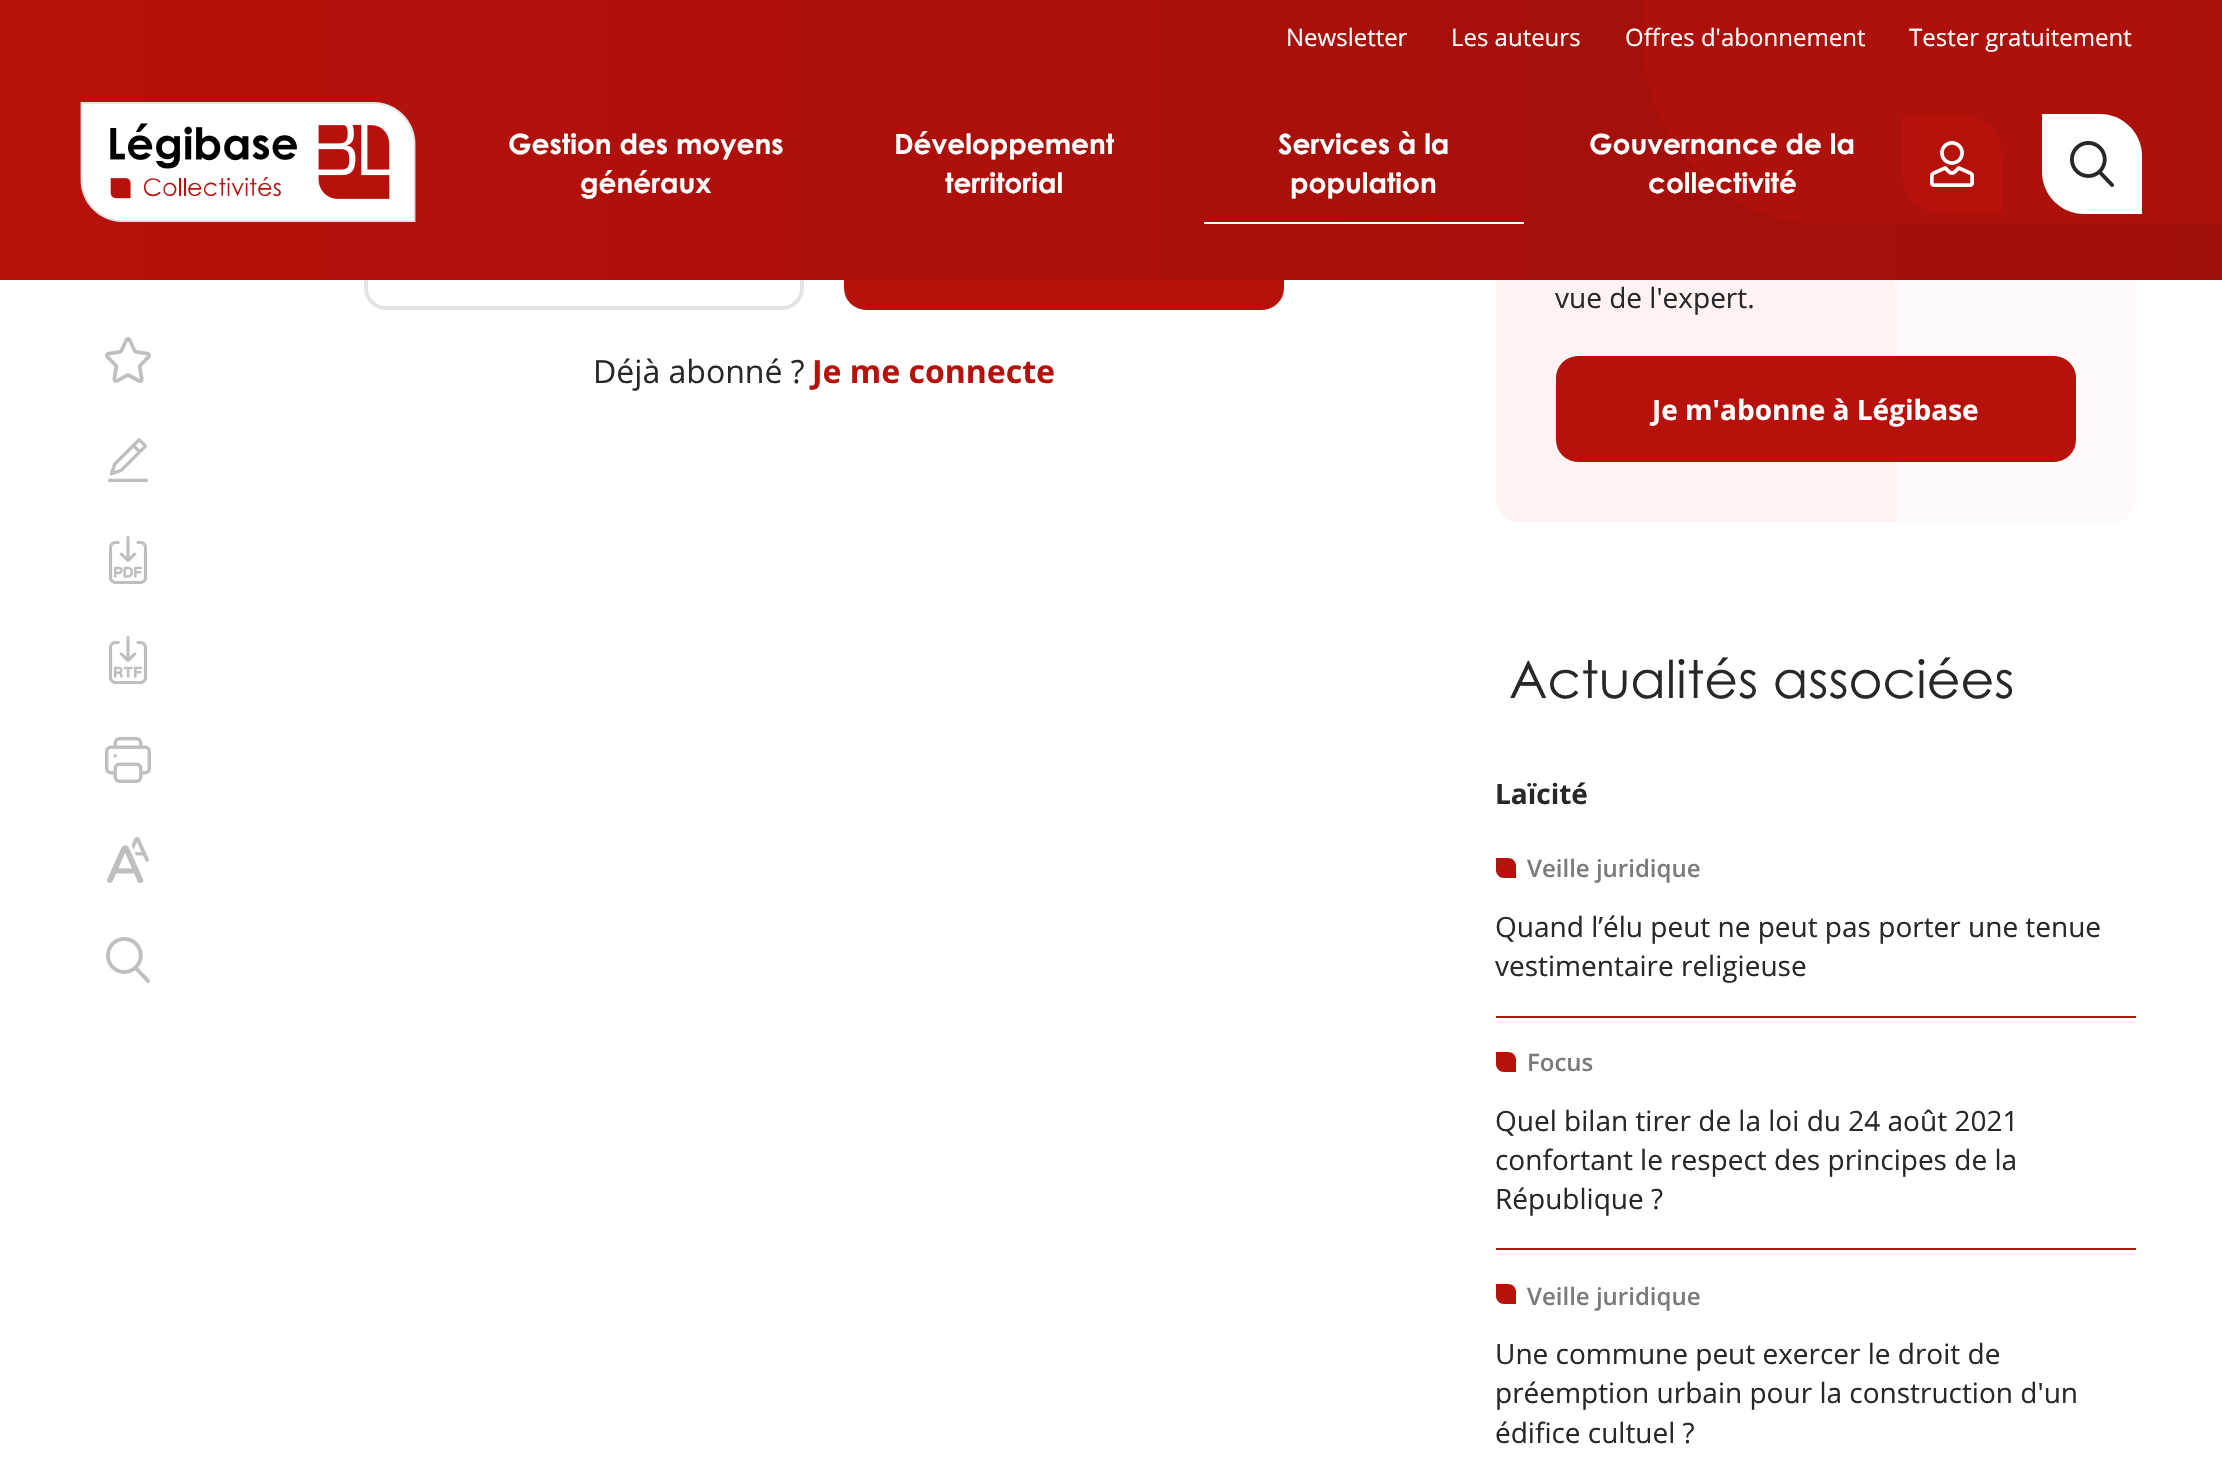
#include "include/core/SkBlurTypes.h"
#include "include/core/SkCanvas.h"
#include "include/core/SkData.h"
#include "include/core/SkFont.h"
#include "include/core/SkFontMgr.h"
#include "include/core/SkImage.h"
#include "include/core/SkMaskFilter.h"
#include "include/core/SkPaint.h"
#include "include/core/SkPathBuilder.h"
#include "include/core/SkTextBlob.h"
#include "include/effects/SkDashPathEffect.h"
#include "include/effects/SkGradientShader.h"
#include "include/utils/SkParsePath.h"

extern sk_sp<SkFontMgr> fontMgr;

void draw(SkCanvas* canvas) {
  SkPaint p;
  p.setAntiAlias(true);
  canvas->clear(SK_ColorWHITE);
  p.setStyle(SkPaint::kStroke_Style);
  p.setStrokeWidth(4);
  p.setColor(SkColorSetRGB(227, 227, 227));
  canvas->drawRoundRect(SkRect::MakeLTRB(366, 206, 802, 308), 20, 20, p);
  p.setStyle(SkPaint::kFill_Style);
  p.setColor(SkColorSetRGB(183, 17, 11));
  canvas->drawRoundRect(SkRect::MakeLTRB(844, 204, 1284, 310), 22, 22, p);
  p.setColor(SkColorSetRGB(255, 249, 249));
  canvas->drawRoundRect(SkRect::MakeLTRB(1496, -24, 2136, 522), 24, 24, p);
  p.setColor(SkColorSetRGB(255, 242, 242));
  canvas->drawPath(SkPathBuilder().moveTo(1496, 222).lineTo(1816, 222).cubicTo(1860, 222, 1896, 258, 1896, 302).lineTo(1896, 522).lineTo(1520, 522).cubicTo(1506.5f, 522, 1496, 511.5f, 1496, 498).close().detach(), p);
  {
    const SkColor colors[] = {SkColorSetRGB(183, 17, 11), SkColorSetRGB(159, 15, 10)};
    const float stops[] = {0, 1};
    const SkPoint ends[] = {{0, 140}, {2222, 140}};
    p.setShader(SkGradientShader::MakeLinear(ends, colors, stops, 2, SkTileMode::kClamp));
    p.setAlpha(255);
  }
  canvas->drawRect(SkRect::MakeLTRB(0, 0, 2222, 280), p);
  p.setShader(nullptr);
  p.setColor(SkColorSetARGB(128, 183, 17, 11));
  canvas->drawPath(SkPathBuilder().moveTo(1644, 0).lineTo(2222, 0).lineTo(2222, 224).lineTo(1824, 224).cubicTo(1724.5f, 224, 1644, 143.5f, 1644, 44).close().detach(), p);
  canvas->drawImageRect(SkImages::DeferredFromEncodedData(SkData::MakeFromFileName("images/1.png")), SkRect::MakeLTRB(80, 102, 416, 222), SkSamplingOptions());
  p.setColor(SK_ColorWHITE);
  canvas->drawRect(SkRect::MakeLTRB(1204, 222, 1524, 224), p);
  p.setColor(SkColorSetRGB(183, 17, 11));
  canvas->drawPath(SkPathBuilder().moveTo(1902, 114).lineTo(1960, 114).cubicTo(1983, 114, 2002, 133, 2002, 156).lineTo(2002, 214).lineTo(1944, 214).cubicTo(1921, 214, 1902, 195, 1902, 172).close().detach(), p);
  canvas->drawImageRect(SkImages::DeferredFromEncodedData(SkData::MakeFromFileName("images/2.png")), SkRect::MakeLTRB(1930, 141, 1974, 187), SkSamplingOptions());
  p.setColor(SK_ColorWHITE);
  canvas->drawPath(SkPathBuilder().moveTo(2042, 114).lineTo(2100, 114).cubicTo(2123, 114, 2142, 133, 2142, 156).lineTo(2142, 214).lineTo(2084, 214).cubicTo(2061, 214, 2042, 195, 2042, 172).close().detach(), p);
  canvas->drawImageRect(SkImages::DeferredFromEncodedData(SkData::MakeFromFileName("images/3.png")), SkRect::MakeLTRB(2070, 141, 2114, 187), SkSamplingOptions());
  canvas->drawImageRect(SkImages::DeferredFromEncodedData(SkData::MakeFromFileName("images/4.png")), SkRect::MakeLTRB(105, 337, 151, 383), SkSamplingOptions());
  canvas->drawImageRect(SkImages::DeferredFromEncodedData(SkData::MakeFromFileName("images/5.png")), SkRect::MakeLTRB(108, 438, 148, 482), SkSamplingOptions());
  canvas->drawImageRect(SkImages::DeferredFromEncodedData(SkData::MakeFromFileName("images/6.png")), SkRect::MakeLTRB(109, 536, 147, 584), SkSamplingOptions());
  canvas->drawImageRect(SkImages::DeferredFromEncodedData(SkData::MakeFromFileName("images/7.png")), SkRect::MakeLTRB(109, 636, 147, 684), SkSamplingOptions());
  canvas->drawImageRect(SkImages::DeferredFromEncodedData(SkData::MakeFromFileName("images/8.png")), SkRect::MakeLTRB(105, 737, 151, 783), SkSamplingOptions());
  canvas->drawImageRect(SkImages::DeferredFromEncodedData(SkData::MakeFromFileName("images/9.png")), SkRect::MakeLTRB(107, 837, 149, 883), SkSamplingOptions());
  canvas->drawImageRect(SkImages::DeferredFromEncodedData(SkData::MakeFromFileName("images/10.png")), SkRect::MakeLTRB(106, 937, 150, 983), SkSamplingOptions());
  p.setColor(SkColorSetRGB(183, 17, 11));
  canvas->drawRoundRect(SkRect::MakeLTRB(1556, 356, 2076, 462), 22, 22, p);
  canvas->drawRect(SkRect::MakeLTRB(1496, 1016, 2136, 1018), p);
  canvas->drawPath(SkPathBuilder().moveTo(1496, 858).lineTo(1508, 858).cubicTo(1512.5f, 858, 1516, 861.5f, 1516, 866).lineTo(1516, 878).lineTo(1504, 878).cubicTo(1499.5f, 878, 1496, 874.5f, 1496, 870).close().detach(), p);
  canvas->drawRect(SkRect::MakeLTRB(1496, 1248, 2136, 1250), p);
  canvas->drawPath(SkPathBuilder().moveTo(1496, 1052).lineTo(1508, 1052).cubicTo(1512.5f, 1052, 1516, 1055.5f, 1516, 1060).lineTo(1516, 1072).lineTo(1504, 1072).cubicTo(1499.5f, 1072, 1496, 1068.5f, 1496, 1064).close().detach(), p);
  canvas->drawPath(SkPathBuilder().moveTo(1496, 1284).lineTo(1508, 1284).cubicTo(1512.5f, 1284, 1516, 1287.5f, 1516, 1292).lineTo(1516, 1304).lineTo(1504, 1304).cubicTo(1499.5f, 1304, 1496, 1300.5f, 1496, 1296).close().detach(), p);
  SkFont font1(fontMgr->matchFamilyStyle("Open Sans", SkFontStyle::Normal()), 24);
  font1.setSubpixel(true);
  p.setColor(SK_ColorWHITE);
  canvas->drawString("Newsletter", 1286, 46, font1, p);
  canvas->drawString("Les auteurs", 1451, 46, font1, p);
  canvas->drawString("Offres d'abonnement", 1625, 46, font1, p);
  canvas->drawString("Tester gratuitement", 1909, 46, font1, p);
  SkFont font2(fontMgr->matchFamilyStyle("Century Gothic", SkFontStyle::Bold()), 28);
  font2.setSubpixel(true);
  canvas->drawString("Gestion des moyens", 508, 154, font2, p);
  canvas->drawString("généraux", 580, 193, font2, p);
  canvas->drawString("Développement", 894, 154, font2, p);
  canvas->drawString("territorial", 945, 193, font2, p);
  canvas->drawString("Services à la", 1278, 154, font2, p);
  canvas->drawString("population", 1290, 193, font2, p);
  canvas->drawString("Gouvernance de la", 1589, 154, font2, p);
  canvas->drawString("collectivité", 1648, 193, font2, p);
  SkFont font3(fontMgr->matchFamilyStyle("Open Sans", SkFontStyle::Normal()), 32);
  font3.setSubpixel(true);
  p.setColor(SkColorSetRGB(40, 40, 40));
  canvas->drawString("Déjà abonné ?", 593, 383, font3, p);
  SkFont font4(fontMgr->matchFamilyStyle("Open Sans", SkFontStyle::Bold()), 32);
  font4.setSubpixel(true);
  p.setColor(SkColorSetRGB(183, 17, 11));
  canvas->drawString("Je me connecte", 812, 383, font4, p);
  SkFont font5(fontMgr->matchFamilyStyle("Open Sans", SkFontStyle::Normal()), 28);
  font5.setSubpixel(true);
  p.setColor(SkColorSetRGB(40, 40, 40));
  canvas->drawString("vue de l'expert.", 1555, 308, font5, p);
  SkFont font6(fontMgr->matchFamilyStyle("Open Sans", SkFontStyle::Bold()), 28);
  font6.setSubpixel(true);
  p.setColor(SK_ColorWHITE);
  canvas->drawString("Je m'abonne à Légibase", 1652, 420, font6, p);
  SkFont font7(fontMgr->matchFamilyStyle("Century Gothic", SkFontStyle::Normal()), 52);
  font7.setSubpixel(true);
  p.setColor(SkColorSetRGB(40, 40, 40));
  canvas->drawString("Actualités associées", 1509, 698, font7, p);
  canvas->drawString("Laïcité", 1495, 804, font6, p);
  SkFont font8(fontMgr->matchFamilyStyle("Open Sans", SkFontStyle(600, SkFontStyle::kNormal_Width, SkFontStyle::kUpright_Slant)), 24);
  font8.setSubpixel(true);
  p.setColor(SkColorSetRGB(124, 123, 123));
  canvas->drawString("Veille juridique", 1527, 877, font8, p);
  p.setColor(SkColorSetRGB(40, 40, 40));
  canvas->drawString("Quand l’élu peut ne peut pas porter une tenue", 1495, 937, font5, p);
  canvas->drawString("vestimentaire religieuse", 1495, 976, font5, p);
  p.setColor(SkColorSetRGB(124, 123, 123));
  canvas->drawString("Focus", 1527, 1071, font8, p);
  p.setColor(SkColorSetRGB(40, 40, 40));
  canvas->drawString("Quel bilan tirer de la loi du 24 août 2021", 1495, 1131, font5, p);
  canvas->drawString("confortant le respect des principes de la", 1495, 1170, font5, p);
  canvas->drawString("République ?", 1495, 1209, font5, p);
  p.setColor(SkColorSetRGB(124, 123, 123));
  canvas->drawString("Veille juridique", 1527, 1305, font8, p);
  p.setColor(SkColorSetRGB(40, 40, 40));
  canvas->drawString("Une commune peut exercer le droit de", 1495, 1364, font5, p);
  canvas->drawString("préemption urbain pour la construction d'un", 1495, 1403, font5, p);
  canvas->drawString("édifice cultuel ?", 1495, 1443, font5, p);
}
